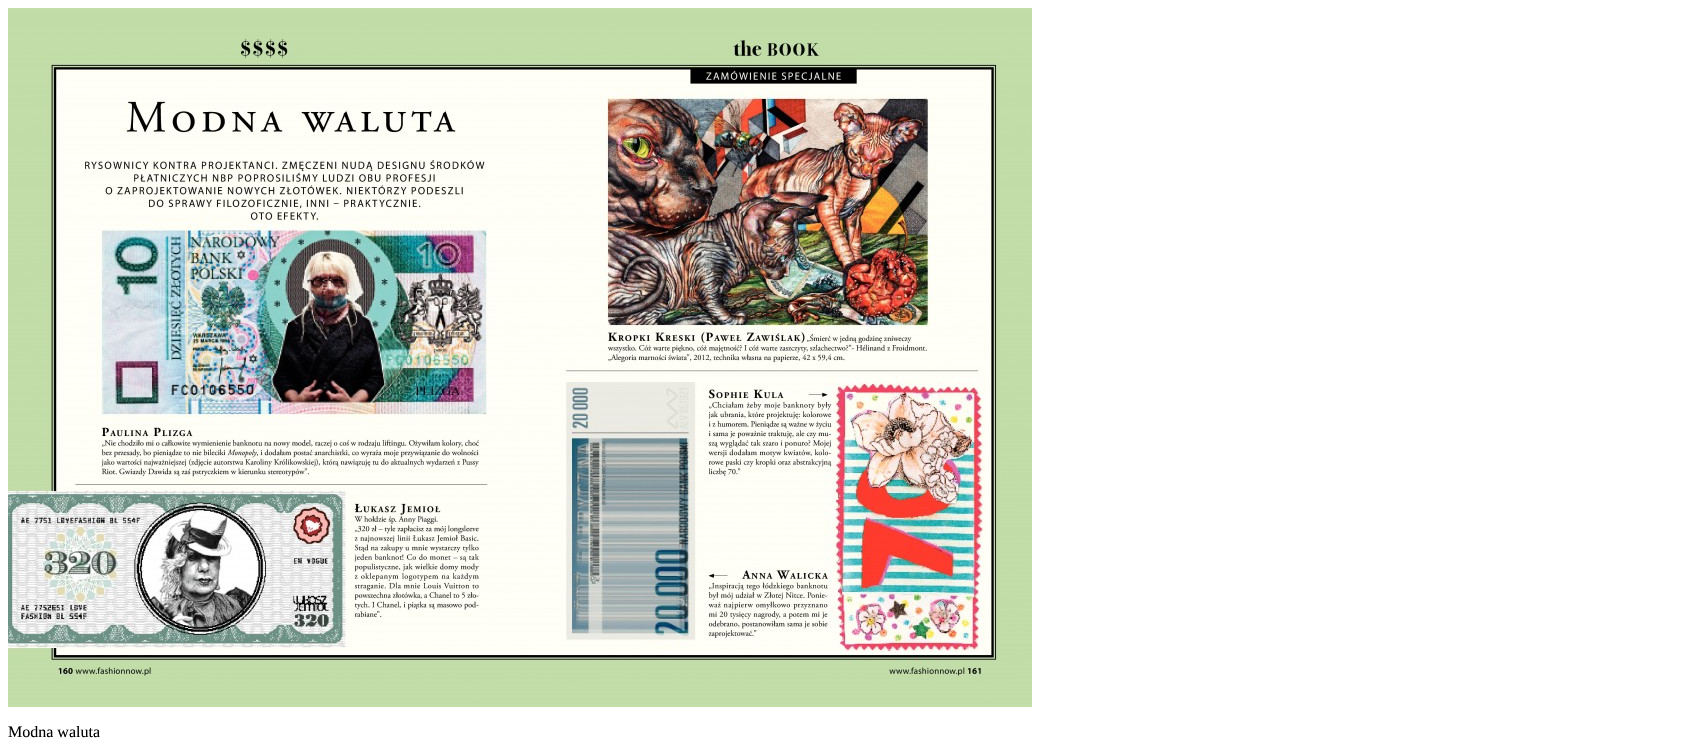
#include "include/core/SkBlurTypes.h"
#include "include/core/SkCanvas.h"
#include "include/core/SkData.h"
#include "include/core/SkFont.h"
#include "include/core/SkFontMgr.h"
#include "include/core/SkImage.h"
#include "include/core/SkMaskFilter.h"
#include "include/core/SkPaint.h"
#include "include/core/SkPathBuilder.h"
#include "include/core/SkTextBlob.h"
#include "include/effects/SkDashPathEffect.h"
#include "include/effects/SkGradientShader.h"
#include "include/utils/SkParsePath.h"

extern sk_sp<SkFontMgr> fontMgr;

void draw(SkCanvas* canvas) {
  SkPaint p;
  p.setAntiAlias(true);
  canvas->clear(SK_ColorWHITE);
  canvas->drawImageRect(SkImages::DeferredFromEncodedData(SkData::MakeFromFileName("images/1.png")), SkRect::MakeLTRB(8, 8, 1032, 707), SkSamplingOptions());
  SkFont font1(fontMgr->matchFamilyStyle("Liberation Serif", SkFontStyle::Normal()), 16);
  font1.setSubpixel(true);
  p.setColor(SK_ColorBLACK);
  canvas->drawString("Modna waluta", 8, 737, font1, p);
}
